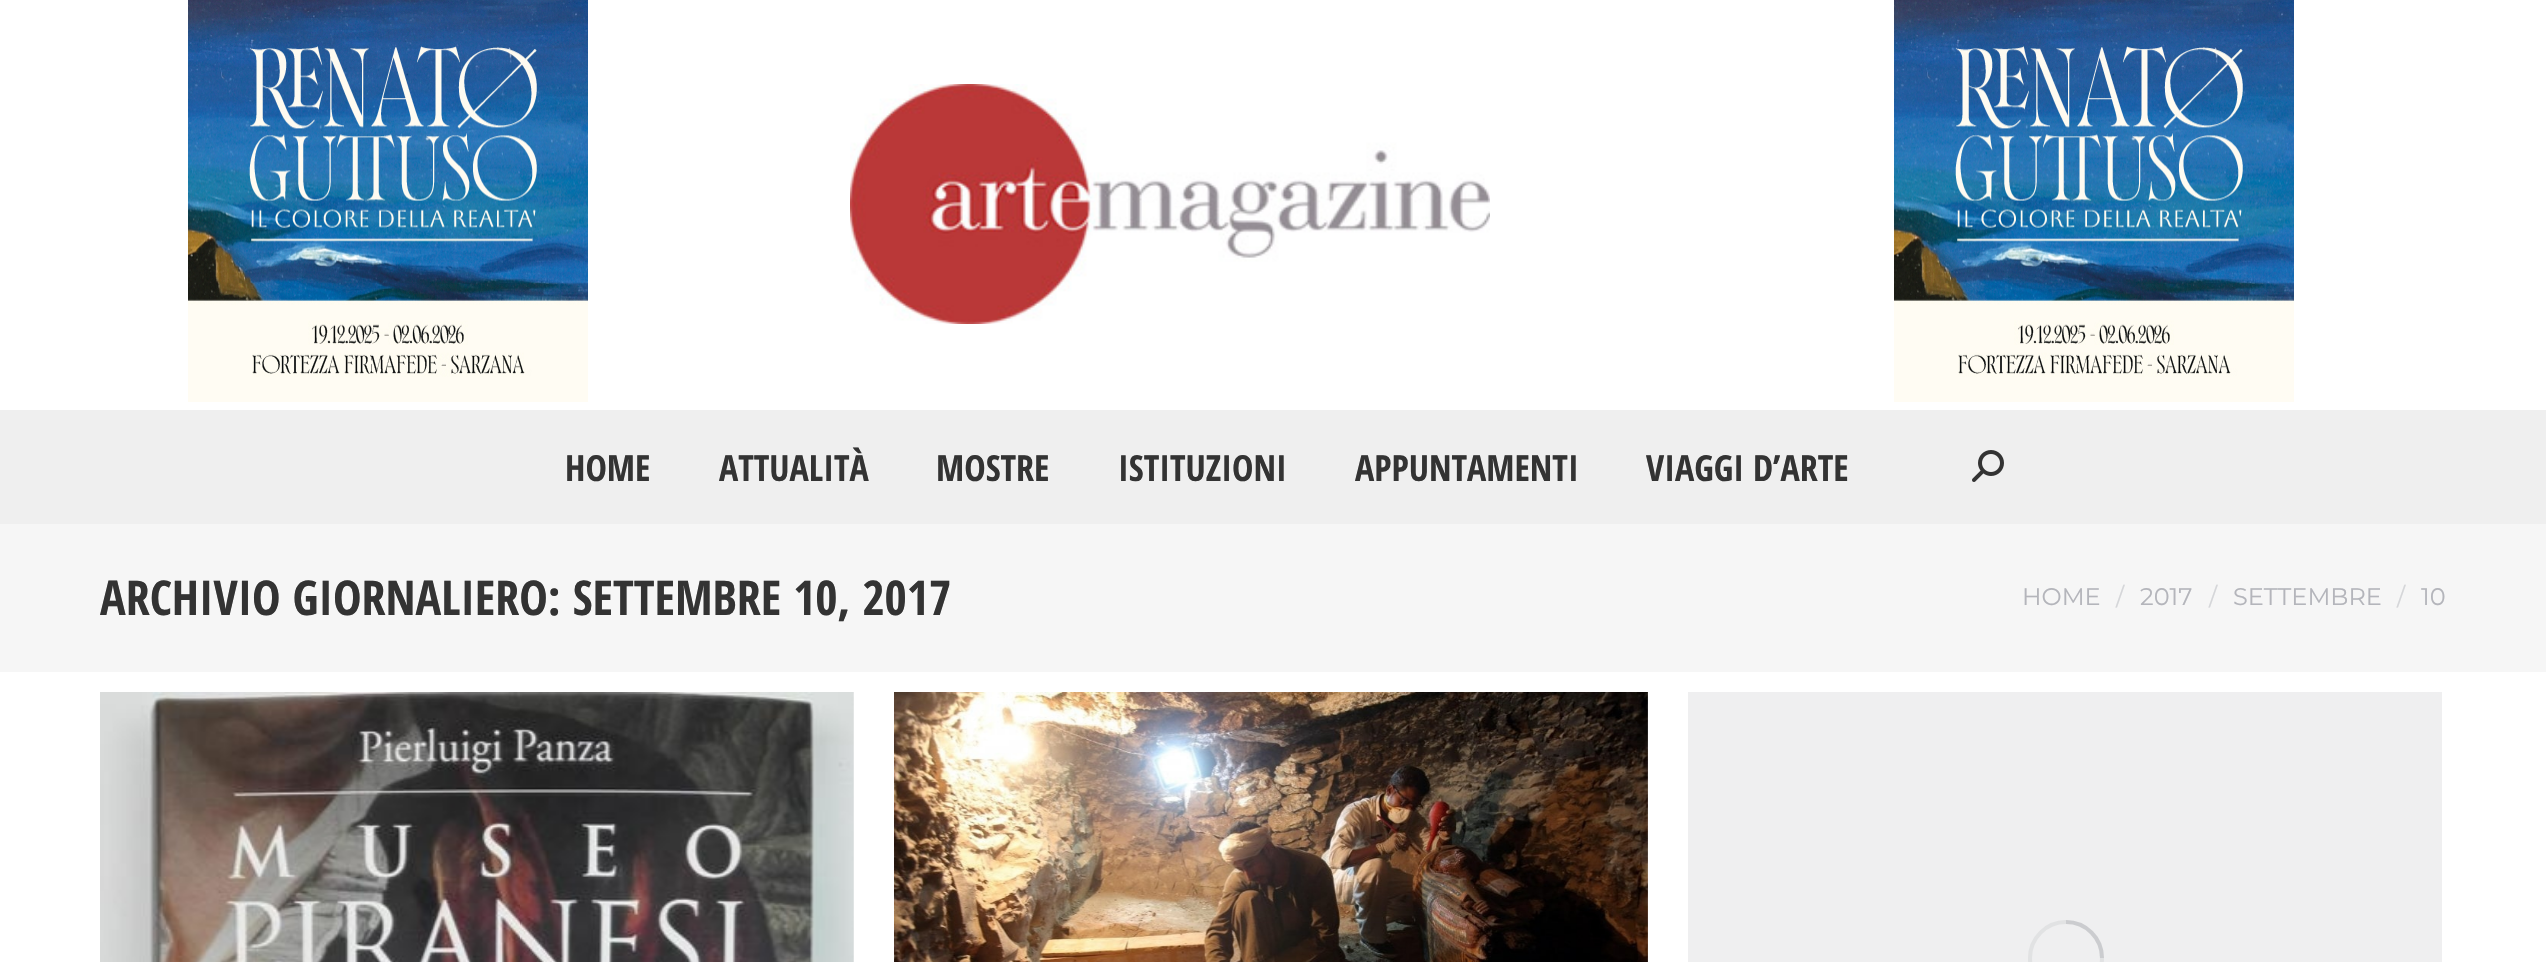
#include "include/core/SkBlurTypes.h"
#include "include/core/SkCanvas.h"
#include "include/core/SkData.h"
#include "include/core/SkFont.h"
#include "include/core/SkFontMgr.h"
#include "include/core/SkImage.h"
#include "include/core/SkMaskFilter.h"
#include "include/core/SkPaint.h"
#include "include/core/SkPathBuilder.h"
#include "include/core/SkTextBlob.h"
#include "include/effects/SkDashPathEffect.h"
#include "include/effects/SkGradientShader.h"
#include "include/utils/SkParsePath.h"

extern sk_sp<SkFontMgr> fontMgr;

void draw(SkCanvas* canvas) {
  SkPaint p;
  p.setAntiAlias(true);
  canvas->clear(SK_ColorWHITE);
  canvas->drawImageRect(SkImages::DeferredFromEncodedData(SkData::MakeFromFileName("images/1.png")), SkRect::MakeLTRB(188, 0, 588, 402), SkSamplingOptions());
  canvas->drawImageRect(SkImages::DeferredFromEncodedData(SkData::MakeFromFileName("images/2.png")), SkRect::MakeLTRB(850, 84, 1490, 324), SkSamplingOptions());
  canvas->drawImageRect(SkImages::DeferredFromEncodedData(SkData::MakeFromFileName("images/1.png")), SkRect::MakeLTRB(1894, 0, 2294, 402), SkSamplingOptions());
  p.setColor(SkColorSetRGB(239, 239, 239));
  canvas->drawRect(SkRect::MakeLTRB(0, 410, 2546, 524), p);
  canvas->drawImageRect(SkImages::DeferredFromEncodedData(SkData::MakeFromFileName("images/3.png")), SkRect::MakeLTRB(1972, 450, 2004, 482), SkSamplingOptions());
  p.setColor(SkColorSetRGB(246, 246, 246));
  canvas->drawRect(SkRect::MakeLTRB(0, 524, 2546, 672), p);
  p.setColor(SkColorSetRGB(245, 245, 245));
  canvas->drawRect(SkRect::MakeLTRB(853, 692, 854, 962), p);
  canvas->drawImageRect(SkImages::DeferredFromEncodedData(SkData::MakeFromFileName("images/4.png")), SkRect::MakeLTRB(100, 692, 854, 962), SkSamplingOptions());
  canvas->drawImageRect(SkImages::DeferredFromEncodedData(SkData::MakeFromFileName("images/5.png")), SkRect::MakeLTRB(894, 692, 1648, 962), SkSamplingOptions());
  p.setColor(SkColorSetRGB(239, 239, 240));
  canvas->drawRect(SkRect::MakeLTRB(1688, 692, 2442, 962), p);
  p.setStyle(SkPaint::kStroke_Style);
  p.setStrokeWidth(4);
  p.setColor(SkColorSetRGB(225, 226, 227));
  canvas->drawCircle(2066, 958, 36, p);
  p.setColor(SkColorSetARGB(64, 139, 141, 148));
  canvas->drawPath(SkPathBuilder().moveTo(2102, 958).cubicTo(2102, 938, 2086, 922, 2066, 922).detach(), p);
  SkFont font1(fontMgr->matchFamilyStyle("Open Sans Condensed", SkFontStyle::Bold()), 36);
  font1.setSubpixel(true);
  p.setStyle(SkPaint::kFill_Style);
  p.setColor(SkColorSetRGB(51, 51, 51));
  canvas->drawString("HOME", 565, 481, font1, p);
  canvas->drawString("ATTUALITÀ", 719, 481, font1, p);
  canvas->drawString("MOSTRE", 936, 481, font1, p);
  canvas->drawString("ISTITUZIONI", 1118, 481, font1, p);
  canvas->drawString("APPUNTAMENTI", 1355, 481, font1, p);
  canvas->drawString("VIAGGI D’ARTE", 1646, 481, font1, p);
  SkFont font2(fontMgr->matchFamilyStyle("Open Sans Condensed", SkFontStyle::Bold()), 48);
  font2.setSubpixel(true);
  canvas->drawString("ARCHIVIO GIORNALIERO: SETTEMBRE 10, 2017", 100, 615, font2, p);
  SkFont font3(fontMgr->matchFamilyStyle("Montserrat", SkFontStyle::Normal()), 24);
  font3.setSubpixel(true);
  p.setColor(SkColorSetRGB(180, 181, 187));
  canvas->drawString("HOME", 2022, 605, font3, p);
  p.setColor(SkColorSetRGB(213, 214, 217));
  canvas->drawString("/", 2116, 605, font3, p);
  p.setColor(SkColorSetRGB(180, 181, 187));
  canvas->drawString("2017", 2140, 605, font3, p);
  p.setColor(SkColorSetRGB(213, 214, 217));
  canvas->drawString("/", 2209, 605, font3, p);
  p.setColor(SkColorSetRGB(180, 181, 187));
  canvas->drawString("SETTEMBRE", 2233, 605, font3, p);
  p.setColor(SkColorSetRGB(213, 214, 217));
  canvas->drawString("/", 2397, 605, font3, p);
  p.setColor(SkColorSetRGB(180, 181, 187));
  canvas->drawString("10", 2421, 605, font3, p);
}
